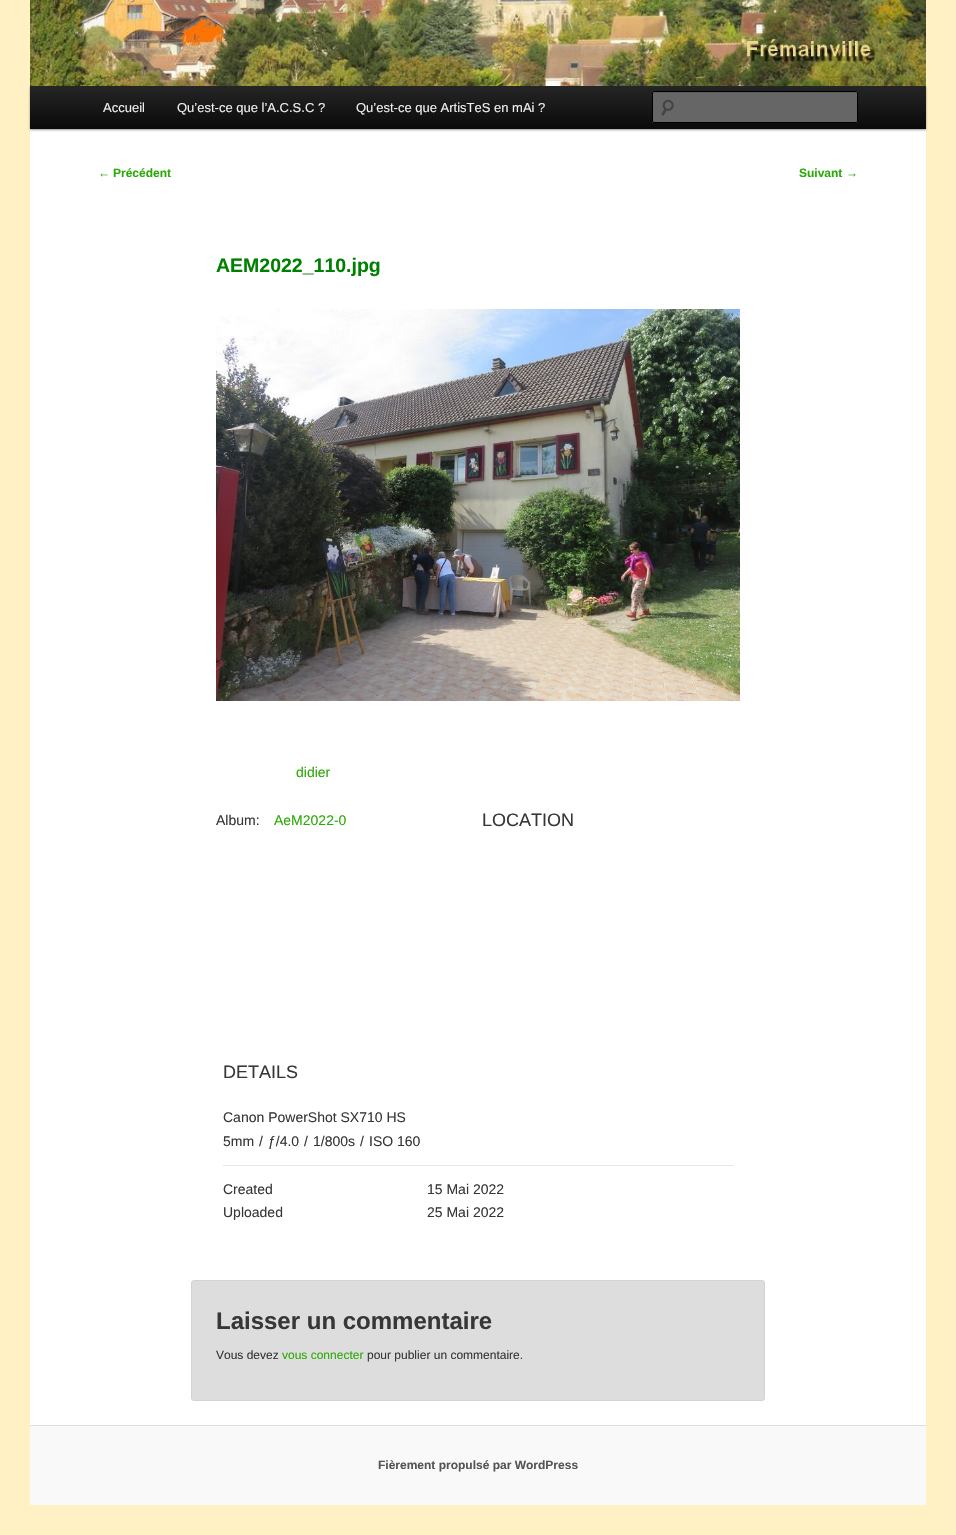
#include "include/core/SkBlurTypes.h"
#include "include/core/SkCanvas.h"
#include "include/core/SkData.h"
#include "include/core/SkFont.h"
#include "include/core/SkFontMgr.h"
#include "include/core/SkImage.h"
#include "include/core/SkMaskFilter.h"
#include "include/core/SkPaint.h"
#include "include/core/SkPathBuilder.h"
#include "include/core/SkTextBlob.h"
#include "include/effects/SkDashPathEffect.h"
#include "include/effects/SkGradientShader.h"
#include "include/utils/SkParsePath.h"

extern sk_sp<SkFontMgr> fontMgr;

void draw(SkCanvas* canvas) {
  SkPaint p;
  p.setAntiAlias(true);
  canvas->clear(SkColorSetRGB(255, 241, 196));
  p.setColor(SK_ColorWHITE);
  canvas->drawRect(SkRect::MakeLTRB(30, 129, 926, 1425), p);
  p.setColor(SkColorSetARGB(102, 0, 0, 0));
  p.setMaskFilter(SkMaskFilter::MakeBlur(kNormal_SkBlurStyle, 1));
  canvas->drawRect(SkRect::MakeLTRB(30, 87, 926, 130), p);
  p.setMaskFilter(nullptr);
  canvas->drawImageRect(SkImages::DeferredFromEncodedData(SkData::MakeFromFileName("images/1.png")), SkRect::MakeLTRB(30, 0, 926, 86), SkSamplingOptions());
  {
    const SkColor colors[] = {SkColorSetRGB(37, 37, 37), SkColorSetRGB(10, 10, 10)};
    const float stops[] = {0, 1};
    const SkPoint ends[] = {{478, 86}, {478, 129}};
    p.setShader(SkGradientShader::MakeLinear(ends, colors, stops, 2, SkTileMode::kClamp));
    p.setAlpha(255);
  }
  canvas->drawRect(SkRect::MakeLTRB(30, 86, 926, 129), p);
  p.setShader(nullptr);
  p.setColor(SkColorSetRGB(102, 102, 102));
  canvas->drawRoundRect(SkRect::MakeLTRB(652, 91, 858, 123), 2, 2, p);
  canvas->drawImageRect(SkImages::DeferredFromEncodedData(SkData::MakeFromFileName("images/2.png")), SkRect::MakeLTRB(661, 99, 674, 116), SkSamplingOptions());
  p.setColor(SkColorSetRGB(92, 92, 92));
  canvas->drawPath(SkPathBuilder().moveTo(654, 93).lineTo(857, 93).lineTo(857, 94).cubicTo(857, 93, 857, 92, 856, 92).lineTo(654, 92).lineTo(653, 92).lineTo(653, 94).cubicTo(653, 93, 653, 93, 654, 93).close().detach(), p);
  p.setStyle(SkPaint::kStroke_Style);
  p.setStrokeWidth(1);
  p.setColor(SK_ColorBLACK);
  canvas->drawRoundRect(SkRect::MakeLTRB(652.5f, 91.5f, 857.5f, 122.5f), 1.5f, 1.5f, p);
  canvas->drawImageRect(SkImages::DeferredFromEncodedData(SkData::MakeFromFileName("images/3.png")), SkRect::MakeLTRB(216, 309, 740, 701), SkSamplingOptions());
  p.setStyle(SkPaint::kFill_Style);
  p.setColor(SkColorSetRGB(230, 230, 230));
  canvas->drawRect(SkRect::MakeLTRB(223, 1165, 733, 1166), p);
  p.setColor(SkColorSetRGB(221, 221, 221));
  canvas->drawRoundRect(SkRect::MakeLTRB(191.5f, 1280.5f, 764.5f, 1400.5f), 2.5f, 2.5f, p);
  p.setStyle(SkPaint::kStroke_Style);
  p.setColor(SkColorSetRGB(211, 211, 211));
  canvas->drawRoundRect(SkRect::MakeLTRB(191.5f, 1280.5f, 764.5f, 1400.5f), 2.5f, 2.5f, p);
  p.setStyle(SkPaint::kFill_Style);
  p.setColor(SkColorSetRGB(249, 249, 249));
  canvas->drawRect(SkRect::MakeLTRB(30, 1426, 926, 1505), p);
  p.setColor(SkColorSetRGB(221, 221, 221));
  canvas->drawRect(SkRect::MakeLTRB(30, 1425, 926, 1426), p);
  SkFont font1(fontMgr->matchFamilyStyle("Liberation Sans", SkFontStyle::Normal()), 13);
  font1.setSubpixel(true);
  p.setColor(SkColorSetRGB(238, 238, 238));
  canvas->drawString("Accueil", 103, 112, font1, p);
  canvas->drawString("Qu’est-ce que l’A.C.S.C ?", 177, 112, font1, p);
  canvas->drawString("Qu’est-ce que ArtisTeS en mAi ?", 356, 112, font1, p);
  SkFont font2(fontMgr->matchFamilyStyle("Liberation Sans", SkFontStyle::Normal()), 12);
  font2.setSubpixel(true);
  p.setColor(SkColorSetRGB(43, 170, 8));
  canvas->drawString("←", 98, 177, font2, p);
  SkFont font3(fontMgr->matchFamilyStyle("Liberation Sans", SkFontStyle::Bold()), 12);
  font3.setSubpixel(true);
  canvas->drawString("Précédent", 113, 177, font3, p);
  canvas->drawString("Suivant", 799, 177, font3, p);
  canvas->drawString("→", 846, 177, font2, p);
  SkFont font4(fontMgr->matchFamilyStyle("Liberation Sans", SkFontStyle::Bold()), 19.5f);
  font4.setSubpixel(true);
  p.setColor(SkColorSetRGB(0, 128, 0));
  canvas->drawString("AEM2022_110.jpg", 216, 272, font4, p);
  SkFont font5(fontMgr->matchFamilyStyle("Liberation Sans", SkFontStyle::Normal()), 14);
  font5.setSubpixel(true);
  p.setColor(SkColorSetRGB(43, 170, 8));
  canvas->drawString("didier", 296, 777, font5, p);
  p.setColor(SkColorSetRGB(55, 55, 55));
  canvas->drawString("Album:", 216, 825, font5, p);
  p.setColor(SkColorSetRGB(43, 170, 8));
  canvas->drawString("AeM2022-0", 274, 825, font5, p);
  SkFont font6(fontMgr->matchFamilyStyle("Liberation Sans", SkFontStyle::Normal()), 18);
  font6.setSubpixel(true);
  p.setColor(SkColorSetRGB(55, 55, 55));
  canvas->drawString("LOCATION", 482, 826, font6, p);
  canvas->drawString("DETAILS", 223, 1078, font6, p);
  canvas->drawString("Canon PowerShot SX710 HS", 223, 1122, font5, p);
  canvas->drawString("5mm", 223, 1146, font5, p);
  canvas->drawString("/", 259, 1146, font5, p);
  canvas->drawString("ƒ/4.0", 268, 1146, font5, p);
  canvas->drawString("/", 304, 1146, font5, p);
  canvas->drawString("1/800s", 313, 1146, font5, p);
  canvas->drawString("/", 360, 1146, font5, p);
  canvas->drawString("ISO 160", 369, 1146, font5, p);
  canvas->drawString("Created", 223, 1194, font5, p);
  canvas->drawString("15 Mai 2022", 427, 1194, font5, p);
  canvas->drawString("Uploaded", 223, 1217, font5, p);
  canvas->drawString("25 Mai 2022", 427, 1217, font5, p);
  SkFont font7(fontMgr->matchFamilyStyle("Liberation Sans", SkFontStyle::Bold()), 24);
  font7.setSubpixel(true);
  canvas->drawString("Laisser un commentaire", 216, 1329, font7, p);
  canvas->drawString("Vous devez", 216, 1359, font2, p);
  p.setColor(SkColorSetRGB(43, 170, 8));
  canvas->drawString("vous connecter", 282, 1359, font2, p);
  p.setColor(SkColorSetRGB(55, 55, 55));
  canvas->drawString("pour publier un commentaire.", 367, 1359, font2, p);
  p.setColor(SkColorSetRGB(85, 85, 85));
  canvas->drawString("Fièrement propulsé par WordPress", 378, 1469, font3, p);
}
